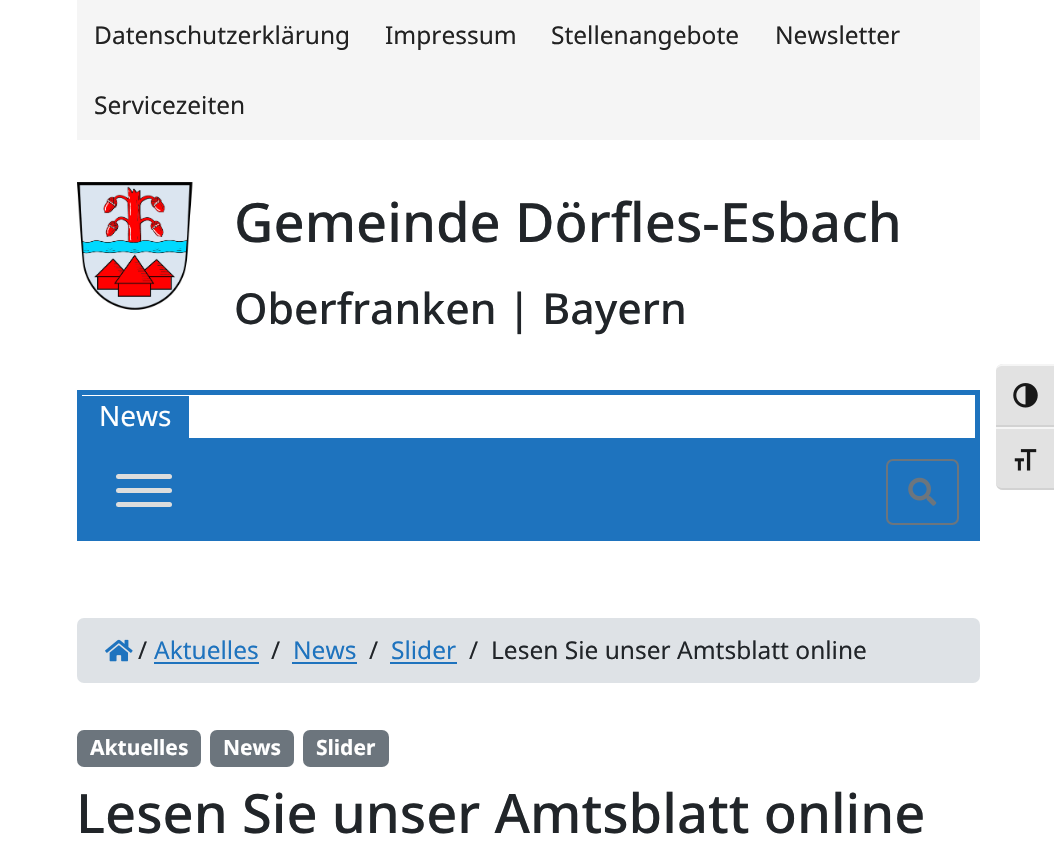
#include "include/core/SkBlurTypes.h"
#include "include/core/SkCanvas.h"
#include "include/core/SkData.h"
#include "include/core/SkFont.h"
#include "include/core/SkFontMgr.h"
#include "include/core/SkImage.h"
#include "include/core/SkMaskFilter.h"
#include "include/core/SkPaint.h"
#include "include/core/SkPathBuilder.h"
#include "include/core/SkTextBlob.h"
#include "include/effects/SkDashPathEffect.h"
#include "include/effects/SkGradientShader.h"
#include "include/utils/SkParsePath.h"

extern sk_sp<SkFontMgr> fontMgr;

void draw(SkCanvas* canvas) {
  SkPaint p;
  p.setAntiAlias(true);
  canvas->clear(SK_ColorWHITE);
  p.setColor(SkColorSetRGB(245, 245, 245));
  canvas->drawRect(SkRect::MakeLTRB(77, 0, 980, 140), p);
  canvas->drawImageRect(SkImages::DeferredFromEncodedData(SkData::MakeFromFileName("images/1.png")), SkRect::MakeLTRB(77, 182, 193, 310), SkSamplingOptions());
  p.setStyle(SkPaint::kStroke_Style);
  p.setStrokeWidth(5);
  p.setColor(SkColorSetRGB(30, 115, 190));
  canvas->drawRect(SkRect::MakeLTRB(79.5f, 392.5f, 977.5f, 440.5f), p);
  p.setStyle(SkPaint::kFill_Style);
  canvas->drawRect(SkRect::MakeLTRB(82, 396, 189, 438), p);
  canvas->drawRect(SkRect::MakeLTRB(77, 443, 980, 541), p);
  p.setColor(SkColorSetRGB(221, 221, 221));
  canvas->drawRoundRect(SkRect::MakeLTRB(116, 474, 172, 479), 2.5f, 2.5f, p);
  canvas->drawRoundRect(SkRect::MakeLTRB(116, 488, 172, 493), 2.5f, 2.5f, p);
  canvas->drawRoundRect(SkRect::MakeLTRB(116, 502, 172, 507), 2.5f, 2.5f, p);
  p.setStyle(SkPaint::kStroke_Style);
  p.setStrokeWidth(2);
  p.setColor(SkColorSetRGB(108, 117, 125));
  canvas->drawRoundRect(SkRect::MakeLTRB(887, 460, 958, 524), 6, 6, p);
  canvas->drawImageRect(SkImages::DeferredFromEncodedData(SkData::MakeFromFileName("images/2.png")), SkRect::MakeLTRB(908, 477, 937, 506), SkSamplingOptions());
  p.setStyle(SkPaint::kFill_Style);
  p.setColor(SkColorSetRGB(222, 226, 230));
  canvas->drawRoundRect(SkRect::MakeLTRB(77, 618, 980, 683), 7, 7, p);
  canvas->drawImageRect(SkImages::DeferredFromEncodedData(SkData::MakeFromFileName("images/3.png")), SkRect::MakeLTRB(105, 639, 133, 662), SkSamplingOptions());
  p.setColor(SkColorSetRGB(30, 115, 190));
  canvas->drawRect(SkRect::MakeLTRB(154, 662, 259, 664), p);
  canvas->drawRect(SkRect::MakeLTRB(292, 662, 357, 664), p);
  canvas->drawRect(SkRect::MakeLTRB(390, 662, 457, 664), p);
  p.setColor(SkColorSetRGB(108, 117, 125));
  canvas->drawRoundRect(SkRect::MakeLTRB(77, 730, 201, 767), 7, 7, p);
  canvas->drawRoundRect(SkRect::MakeLTRB(210, 730, 294, 767), 7, 7, p);
  canvas->drawRoundRect(SkRect::MakeLTRB(303, 730, 389, 767), 7, 7, p);
  p.setColor(SkColorSetRGB(226, 226, 226));
  canvas->drawPath(SkPathBuilder().moveTo(1003, 364).lineTo(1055, 364).lineTo(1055, 427).lineTo(996, 427).lineTo(996, 371).cubicTo(996, 367, 999, 364, 1003, 364).close().detach(), p);
  p.setColor(SkColorSetRGB(245, 245, 245));
  canvas->drawPath(SkPathBuilder().moveTo(1003, 364).cubicTo(999, 364, 996, 367, 996, 371).cubicTo(996, 368, 999, 366, 1003, 366).lineTo(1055, 366).lineTo(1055, 364).close().detach(), p);
  p.setColor(SkColorSetRGB(210, 210, 210));
  canvas->drawRect(SkRect::MakeLTRB(996, 425, 1054, 427), p);
  canvas->drawImageRect(SkImages::DeferredFromEncodedData(SkData::MakeFromFileName("images/4.png")), SkRect::MakeLTRB(1013, 383, 1038, 408), SkSamplingOptions());
  p.setColor(SkColorSetRGB(226, 226, 226));
  canvas->drawPath(SkPathBuilder().moveTo(996, 427).lineTo(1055, 427).lineTo(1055, 490).lineTo(1003, 490).cubicTo(999, 490, 996, 487, 996, 483).close().detach(), p);
  p.setColor(SkColorSetRGB(245, 245, 245));
  canvas->drawRect(SkRect::MakeLTRB(996, 427, 1054, 429), p);
  p.setColor(SkColorSetRGB(210, 210, 210));
  canvas->drawPath(SkPathBuilder().moveTo(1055, 490).lineTo(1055, 488).lineTo(1003, 488).cubicTo(999, 488, 996, 486, 996, 483).cubicTo(996, 487, 999, 490, 1003, 490).close().detach(), p);
  canvas->drawImageRect(SkImages::DeferredFromEncodedData(SkData::MakeFromFileName("images/5.png")), SkRect::MakeLTRB(1014, 449, 1037, 471), SkSamplingOptions());
  SkFont font1(fontMgr->matchFamilyStyle("Noto Sans", SkFontStyle::Normal()), 24.5f);
  font1.setSubpixel(true);
  p.setColor(SkColorSetRGB(34, 34, 34));
  canvas->drawString("Datenschutzerklärung", 94, 44, font1, p);
  canvas->drawString("Impressum", 385, 44, font1, p);
  canvas->drawString("Stellenangebote", 551, 44, font1, p);
  canvas->drawString("Newsletter", 775, 44, font1, p);
  canvas->drawString("Servicezeiten", 94, 114, font1, p);
  SkFont font2(fontMgr->matchFamilyStyle("Noto Sans", SkFontStyle(500, SkFontStyle::kNormal_Width, SkFontStyle::kUpright_Slant)), 54.3f);
  font2.setSubpixel(true);
  p.setColor(SkColorSetRGB(33, 37, 41));
  canvas->drawString("Gemeinde Dörfles-Esbach", 234, 242, font2, p);
  SkFont font3(fontMgr->matchFamilyStyle("Noto Sans", SkFontStyle(500, SkFontStyle::kNormal_Width, SkFontStyle::kUpright_Slant)), 42.75f);
  font3.setSubpixel(true);
  canvas->drawString("Oberfranken | Bayern", 234, 324, font3, p);
  SkFont font4(fontMgr->matchFamilyStyle("Noto Sans", SkFontStyle::Normal()), 28);
  font4.setSubpixel(true);
  p.setColor(SK_ColorWHITE);
  canvas->drawString("News", 99, 426, font4, p);
  p.setColor(SkColorSetRGB(33, 37, 41));
  canvas->drawString("/", 138, 659, font1, p);
  p.setColor(SkColorSetRGB(30, 115, 190));
  canvas->drawString("Aktuelles", 154, 659, font1, p);
  p.setColor(SkColorSetRGB(33, 37, 41));
  canvas->drawString("/", 271, 659, font1, p);
  p.setColor(SkColorSetRGB(30, 115, 190));
  canvas->drawString("News", 293, 659, font1, p);
  p.setColor(SkColorSetRGB(33, 37, 41));
  canvas->drawString("/", 369, 659, font1, p);
  p.setColor(SkColorSetRGB(30, 115, 190));
  canvas->drawString("Slider", 391, 659, font1, p);
  p.setColor(SkColorSetRGB(33, 37, 41));
  canvas->drawString("/", 469, 659, font1, p);
  canvas->drawString("Lesen Sie unser Amtsblatt online", 491, 659, font1, p);
  SkFont font5(fontMgr->matchFamilyStyle("Noto Sans", SkFontStyle::Bold()), 21);
  font5.setSubpixel(true);
  p.setColor(SK_ColorWHITE);
  canvas->drawString("Aktuelles", 90, 755, font5, p);
  canvas->drawString("News", 223, 755, font5, p);
  canvas->drawString("Slider", 316, 755, font5, p);
  p.setColor(SkColorSetRGB(33, 37, 41));
  canvas->drawString("Lesen Sie unser Amtsblatt online", 76, 833, font2, p);
}
